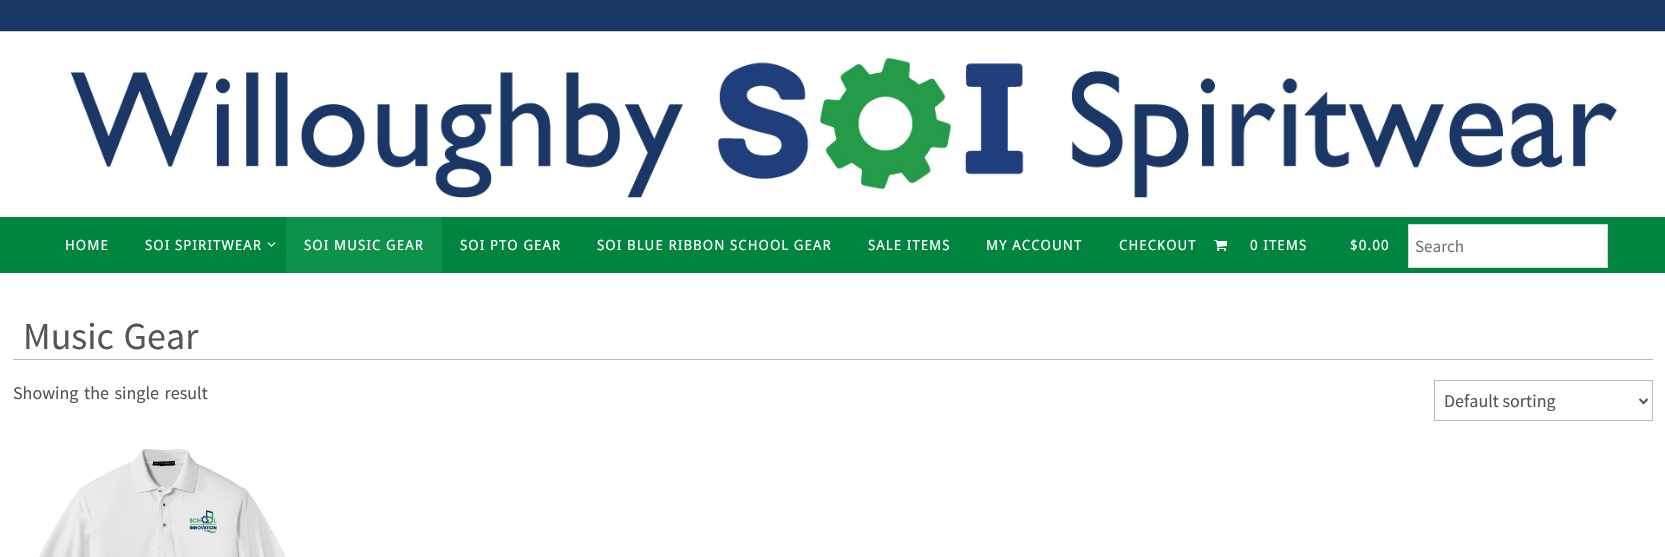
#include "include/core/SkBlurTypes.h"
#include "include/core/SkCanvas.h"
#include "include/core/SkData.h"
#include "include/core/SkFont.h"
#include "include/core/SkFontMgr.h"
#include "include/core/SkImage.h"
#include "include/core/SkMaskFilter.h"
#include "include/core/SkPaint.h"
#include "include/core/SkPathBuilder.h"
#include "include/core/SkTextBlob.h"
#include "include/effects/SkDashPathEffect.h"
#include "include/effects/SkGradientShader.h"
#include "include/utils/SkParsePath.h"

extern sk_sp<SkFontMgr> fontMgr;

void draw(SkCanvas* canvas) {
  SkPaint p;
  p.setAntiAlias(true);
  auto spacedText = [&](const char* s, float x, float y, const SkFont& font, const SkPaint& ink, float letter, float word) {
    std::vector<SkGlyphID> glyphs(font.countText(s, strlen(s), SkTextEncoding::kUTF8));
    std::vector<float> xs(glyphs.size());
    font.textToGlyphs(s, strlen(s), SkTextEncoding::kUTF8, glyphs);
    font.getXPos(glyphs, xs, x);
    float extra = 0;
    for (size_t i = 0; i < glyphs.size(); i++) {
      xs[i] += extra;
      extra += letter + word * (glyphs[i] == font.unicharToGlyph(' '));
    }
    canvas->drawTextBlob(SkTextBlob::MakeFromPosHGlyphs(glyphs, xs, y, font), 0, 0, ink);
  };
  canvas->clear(SK_ColorWHITE);
  canvas->drawImageRect(SkImages::DeferredFromEncodedData(SkData::MakeFromFileName("images/1.png")), SkRect::MakeLTRB(0, 0, 1665, 198), SkSamplingOptions());
  p.setColor(SkColorSetRGB(1, 133, 62));
  canvas->drawRect(SkRect::MakeLTRB(0, 217, 1665, 273), p);
  canvas->drawImageRect(SkImages::DeferredFromEncodedData(SkData::MakeFromFileName("images/2.png")), SkRect::MakeLTRB(267, 242, 276, 247), SkSamplingOptions());
  p.setColor(SkColorSetRGB(14, 146, 75));
  canvas->drawRect(SkRect::MakeLTRB(286, 217, 442, 273), p);
  canvas->drawImageRect(SkImages::DeferredFromEncodedData(SkData::MakeFromFileName("images/3.png")), SkRect::MakeLTRB(1214, 240, 1227, 251), SkSamplingOptions());
  p.setColor(SK_ColorWHITE);
  canvas->drawRect(SkRect::MakeLTRB(1408.5f, 224.5f, 1607.5f, 267.5f), p);
  p.setStyle(SkPaint::kStroke_Style);
  p.setStrokeWidth(1);
  p.setColor(SkColorSetRGB(216, 216, 216));
  canvas->drawRect(SkRect::MakeLTRB(1408.5f, 224.5f, 1607.5f, 267.5f), p);
  p.setStyle(SkPaint::kFill_Style);
  p.setColor(SkColorSetRGB(186, 186, 186));
  canvas->drawRect(SkRect::MakeLTRB(13, 359, 1653, 360), p);
  p.setStyle(SkPaint::kStroke_Style);
  canvas->drawRect(SkRect::MakeLTRB(1434.5f, 380.5f, 1652.5f, 420.5f), p);
  p.setStrokeWidth(2);
  p.setColor(SkColorSetRGB(85, 85, 85));
  canvas->drawPath(SkPathBuilder().moveTo(1639.5f, 399).lineTo(1643.5f, 403).lineTo(1647.5f, 399).detach(), p);
  canvas->drawImageRect(SkImages::DeferredFromEncodedData(SkData::MakeFromFileName("images/4.png")), SkRect::MakeLTRB(39, 449, 286, 557), SkSamplingOptions());
  SkFont font1(fontMgr->matchFamilyStyle("Droid Sans", SkFontStyle::Normal()), 14);
  font1.setSubpixel(true);
  p.setStyle(SkPaint::kFill_Style);
  p.setColor(SK_ColorWHITE);
  spacedText("HOME", 65, 250, font1, p, 1, 0);
  spacedText("SOI SPIRITWEAR", 145, 250, font1, p, 1, 0);
  spacedText("SOI MUSIC GEAR", 304, 250, font1, p, 1, 0);
  spacedText("SOI PTO GEAR", 460, 250, font1, p, 1, 0);
  spacedText("SOI BLUE RIBBON SCHOOL GEAR", 597, 250, font1, p, 1, 0);
  spacedText("SALE ITEMS", 868, 250, font1, p, 1, 0);
  spacedText("MY ACCOUNT", 986, 250, font1, p, 1, 0);
  spacedText("CHECKOUT", 1119, 250, font1, p, 1, 0);
  spacedText("0 ITEMS", 1250, 250, font1, p, 1, 0);
  spacedText("$0.00", 1350, 250, font1, p, 1, 0);
  SkFont font2(fontMgr->matchFamilyStyle("Source Sans Pro", SkFontStyle::Normal()), 17);
  font2.setSubpixel(true);
  p.setColor(SkColorSetRGB(117, 117, 117));
  canvas->drawString("Search", 1415, 252, font2, p);
  SkFont font3(fontMgr->matchFamilyStyle("Source Sans Pro", SkFontStyle::Normal()), 38);
  font3.setSubpixel(true);
  p.setColor(SkColorSetRGB(85, 85, 85));
  spacedText("Music Gear", 23, 349, font3, p, 0, 2);
  SkFont font4(fontMgr->matchFamilyStyle("Source Sans Pro", SkFontStyle::Normal()), 18);
  font4.setSubpixel(true);
  spacedText("Showing the single result", 13, 399, font4, p, 0, 2);
  canvas->drawString("Default sorting", 1444, 407, font4, p);
}
